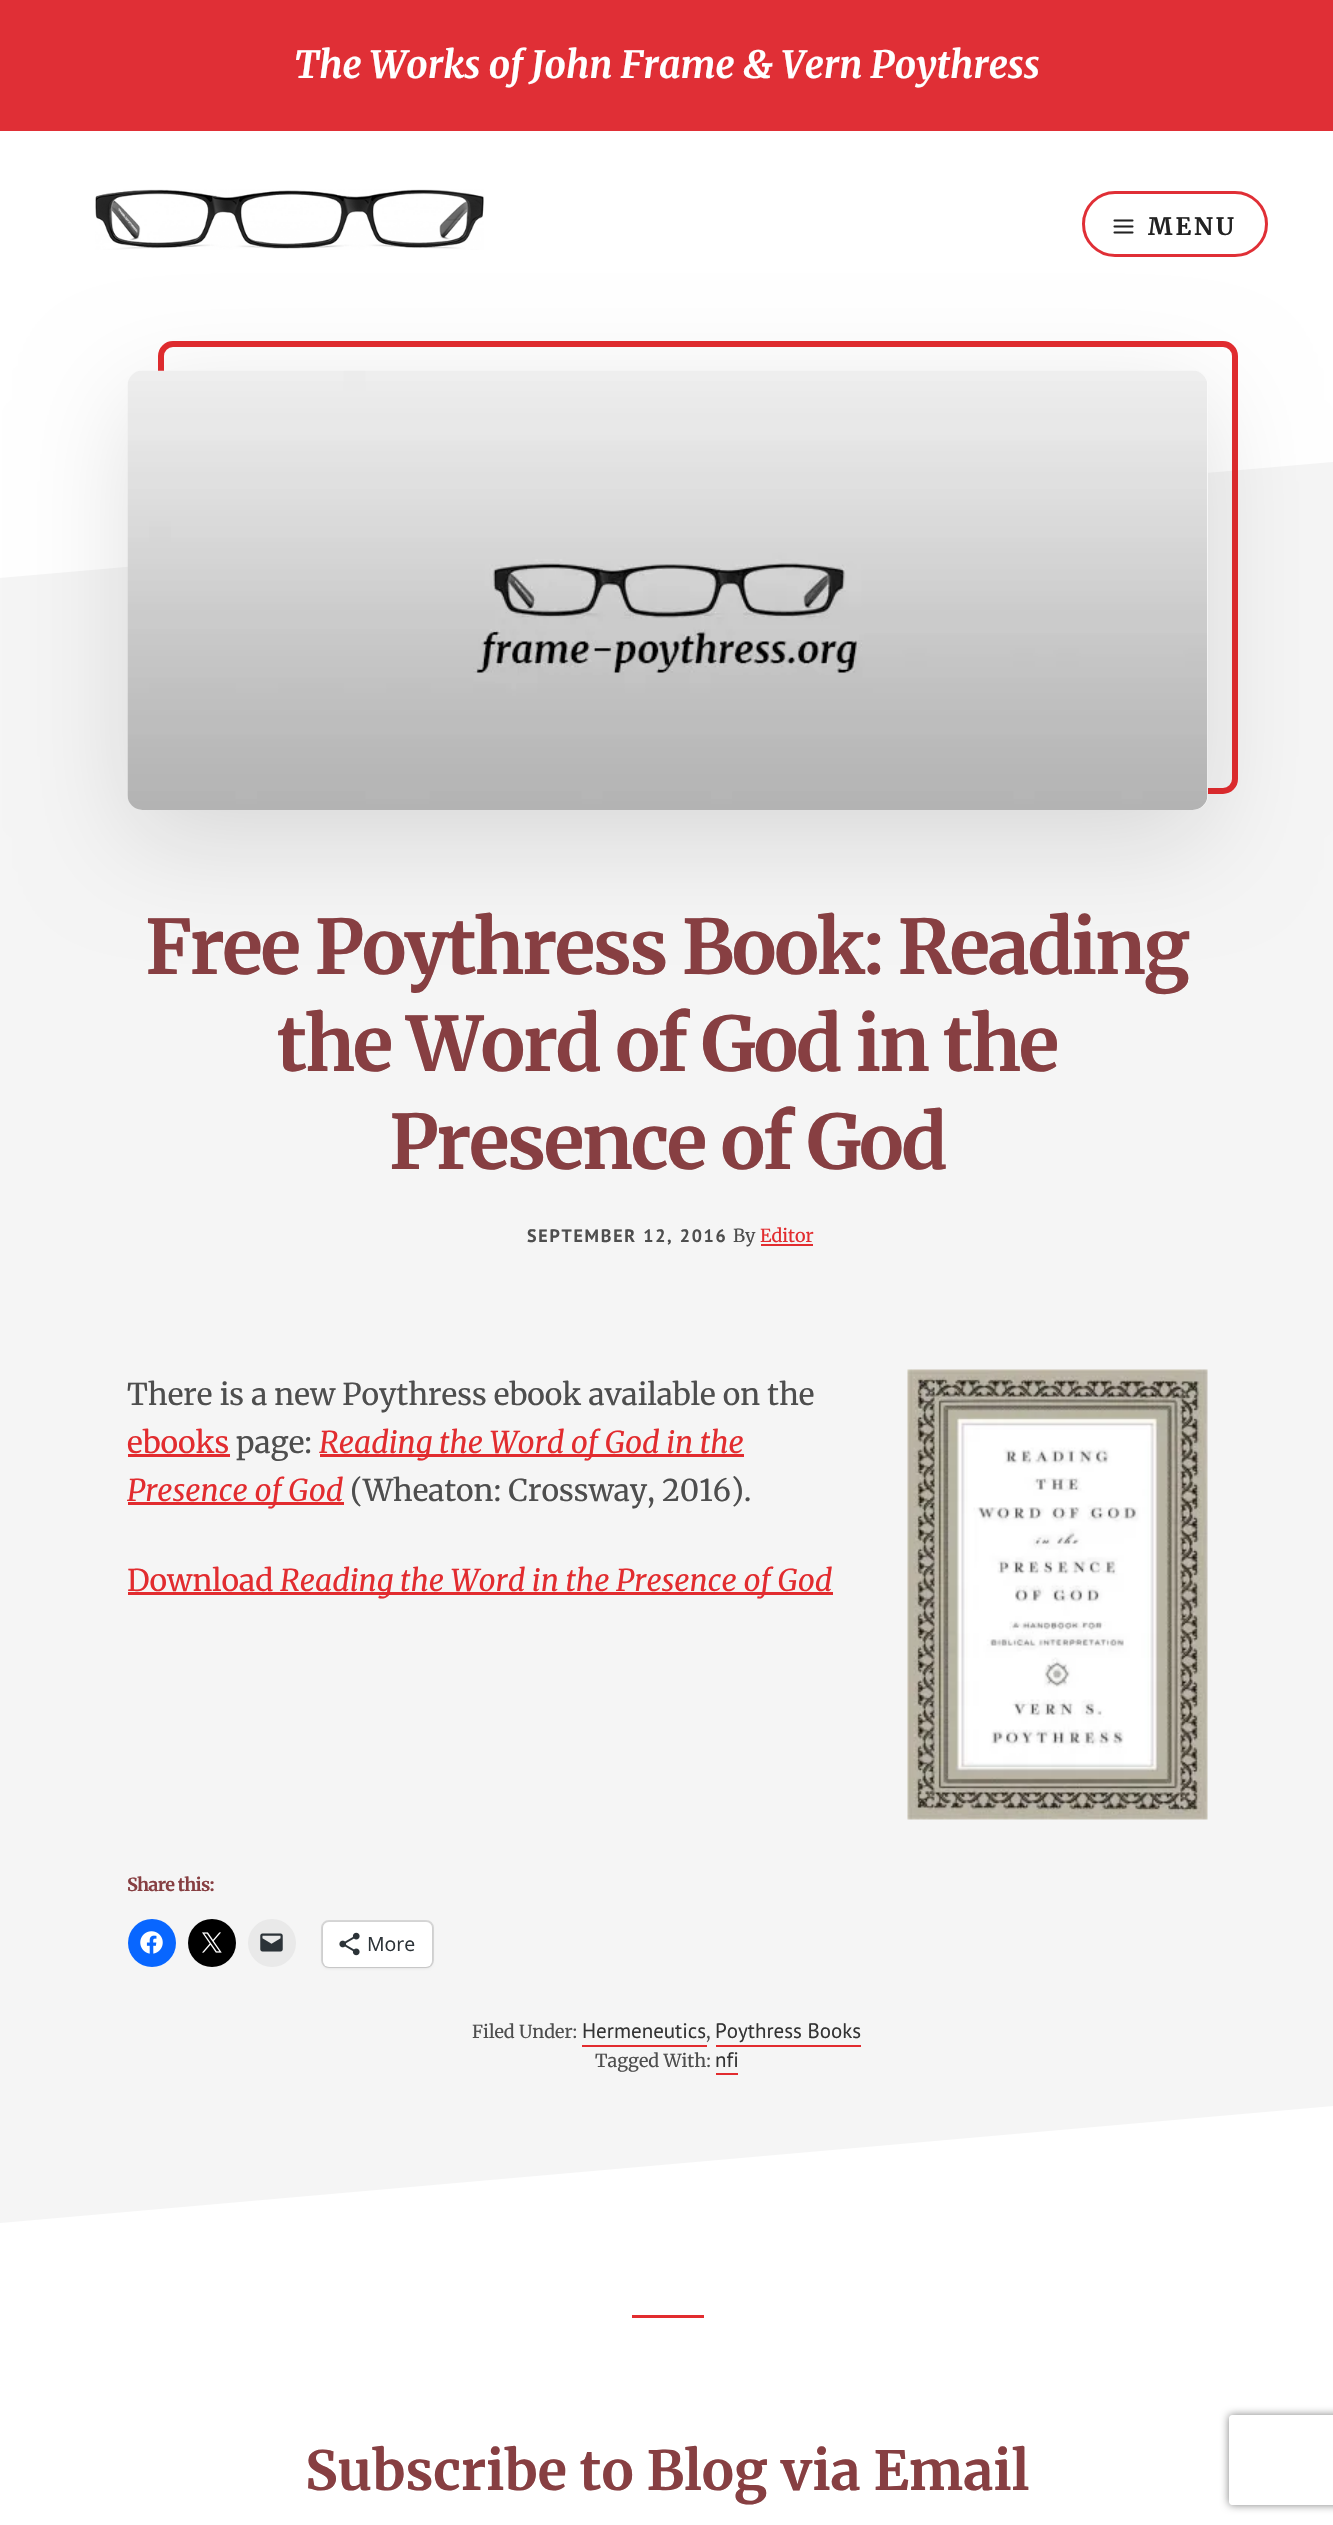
#include "include/core/SkBlurTypes.h"
#include "include/core/SkCanvas.h"
#include "include/core/SkData.h"
#include "include/core/SkFont.h"
#include "include/core/SkFontMgr.h"
#include "include/core/SkImage.h"
#include "include/core/SkMaskFilter.h"
#include "include/core/SkPaint.h"
#include "include/core/SkPathBuilder.h"
#include "include/core/SkTextBlob.h"
#include "include/effects/SkDashPathEffect.h"
#include "include/effects/SkGradientShader.h"
#include "include/utils/SkParsePath.h"

extern sk_sp<SkFontMgr> fontMgr;

void draw(SkCanvas* canvas) {
  SkPaint p;
  p.setAntiAlias(true);
  auto spacedText = [&](const char* s, float x, float y, const SkFont& font, const SkPaint& ink, float letter, float word) {
    std::vector<SkGlyphID> glyphs(font.countText(s, strlen(s), SkTextEncoding::kUTF8));
    std::vector<float> xs(glyphs.size());
    font.textToGlyphs(s, strlen(s), SkTextEncoding::kUTF8, glyphs);
    font.getXPos(glyphs, xs, x);
    float extra = 0;
    for (size_t i = 0; i < glyphs.size(); i++) {
      xs[i] += extra;
      extra += letter + word * (glyphs[i] == font.unicharToGlyph(' '));
    }
    canvas->drawTextBlob(SkTextBlob::MakeFromPosHGlyphs(glyphs, xs, y, font), 0, 0, ink);
  };
  canvas->clear(SK_ColorWHITE);
  p.setColor(SkColorSetRGB(224, 47, 54));
  canvas->drawRect(SkRect::MakeLTRB(0, 0, 1333, 131), p);
  canvas->drawImageRect(SkImages::DeferredFromEncodedData(SkData::MakeFromFileName("images/1.png")), SkRect::MakeLTRB(95, 189, 484, 250), SkSamplingOptions());
  p.setColor(SkColorSetRGB(245, 245, 245));
  canvas->drawPath(SkPathBuilder().moveTo(0, 578).lineTo(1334, 462).lineTo(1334, 1449).lineTo(0, 1566).close().detach(), p);
  p.setStyle(SkPaint::kStroke_Style);
  p.setStrokeWidth(6);
  p.setColor(SkColorSetRGB(226, 44, 47));
  canvas->drawRoundRect(SkRect::MakeLTRB(161, 344, 1235, 791), 12, 12, p);
  p.setStyle(SkPaint::kFill_Style);
  p.setColor(SkColorSetARGB(31, 0, 0, 0));
  p.setMaskFilter(SkMaskFilter::MakeBlur(kNormal_SkBlurStyle, 52.5f));
  canvas->drawRoundRect(SkRect::MakeLTRB(128, 399, 1208, 839), 15, 15, p);
  p.setMaskFilter(nullptr);
  p.setStyle(SkPaint::kStroke_Style);
  p.setStrokeWidth(3);
  p.setColor(SkColorSetRGB(224, 47, 54));
  canvas->drawRoundRect(SkRect::MakeLTRB(1083.5f, 192.5f, 1266.5f, 255.5f), 31.5f, 31.5f, p);
  canvas->drawImageRect(SkImages::DeferredFromEncodedData(SkData::MakeFromFileName("images/2.png")), SkRect::MakeLTRB(1113, 219, 1134, 234), SkSamplingOptions());
  p.setStyle(SkPaint::kFill_Style);
  p.setColor(SK_ColorWHITE);
  canvas->drawRoundRect(SkRect::MakeLTRB(128, 371, 1208, 810), 15, 15, p);
  canvas->drawImageRect(SkImages::DeferredFromEncodedData(SkData::MakeFromFileName("images/3.png")), SkRect::MakeLTRB(127, 370, 1208, 810), SkSamplingOptions());
  p.setColor(SkColorSetRGB(245, 245, 245));
  canvas->drawPath(SkPathBuilder().moveTo(0, 1236).lineTo(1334, 1119).lineTo(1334, 2106).lineTo(0, 2223).close().detach(), p);
  p.setColor(SkColorSetRGB(226, 44, 47));
  canvas->drawRect(SkRect::MakeLTRB(761, 1244, 813, 1246), p);
  canvas->drawImageRect(SkImages::DeferredFromEncodedData(SkData::MakeFromFileName("images/4.png")), SkRect::MakeLTRB(907, 1369, 1208, 1820), SkSamplingOptions());
  canvas->drawRect(SkRect::MakeLTRB(128, 1454, 230, 1457), p);
  canvas->drawRect(SkRect::MakeLTRB(320, 1454, 744, 1457), p);
  canvas->drawRect(SkRect::MakeLTRB(128, 1502, 344, 1505), p);
  canvas->drawRect(SkRect::MakeLTRB(128, 1592, 833, 1595), p);
  p.setColor(SkColorSetRGB(8, 102, 255));
  canvas->drawCircle(152, 1943, 24, p);
  canvas->drawImageRect(SkImages::DeferredFromEncodedData(SkData::MakeFromFileName("images/5.png")), SkRect::MakeLTRB(140, 1931, 163, 1954), SkSamplingOptions());
  p.setColor(SK_ColorBLACK);
  canvas->drawCircle(212, 1943, 24, p);
  canvas->drawImageRect(SkImages::DeferredFromEncodedData(SkData::MakeFromFileName("images/6.png")), SkRect::MakeLTRB(202, 1932, 222, 1953), SkSamplingOptions());
  p.setColor(SkColorSetRGB(233, 233, 233));
  canvas->drawCircle(272, 1943, 24, p);
  canvas->drawImageRect(SkImages::DeferredFromEncodedData(SkData::MakeFromFileName("images/7.png")), SkRect::MakeLTRB(260, 1933, 283, 1952), SkSamplingOptions());
  p.setStyle(SkPaint::kStroke_Style);
  p.setStrokeWidth(2);
  p.setColor(SkColorSetRGB(216, 216, 216));
  canvas->drawRoundRect(SkRect::MakeLTRB(322, 1921, 433, 1967), 7, 7, p);
  p.setStyle(SkPaint::kFill_Style);
  p.setColor(SkColorSetARGB(31, 0, 0, 0));
  p.setMaskFilter(SkMaskFilter::MakeBlur(kNormal_SkBlurStyle, 1.5f));
  canvas->drawRoundRect(SkRect::MakeLTRB(323, 1923, 432, 1968), 6, 6, p);
  p.setMaskFilter(nullptr);
  p.setColor(SK_ColorWHITE);
  canvas->drawRoundRect(SkRect::MakeLTRB(323, 1922, 432, 1967), 6, 6, p);
  canvas->drawImageRect(SkImages::DeferredFromEncodedData(SkData::MakeFromFileName("images/8.png")), SkRect::MakeLTRB(339, 1932, 360, 1956), SkSamplingOptions());
  p.setColor(SkColorSetRGB(226, 44, 47));
  canvas->drawRect(SkRect::MakeLTRB(582, 2045, 707, 2047), p);
  canvas->drawRect(SkRect::MakeLTRB(716, 2045, 861, 2047), p);
  canvas->drawRect(SkRect::MakeLTRB(716, 2073, 738, 2075), p);
  canvas->drawRect(SkRect::MakeLTRB(632, 2315, 704, 2318), p);
  canvas->save();
  canvas->clipPath(SkPathBuilder(SkPathFillType::kEvenOdd).moveTo(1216, 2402).lineTo(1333, 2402).lineTo(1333, 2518).lineTo(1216, 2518).close().moveTo(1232, 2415).lineTo(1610, 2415).cubicTo(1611.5f, 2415, 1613, 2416.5f, 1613, 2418).lineTo(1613, 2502).cubicTo(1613, 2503.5f, 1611.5f, 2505, 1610, 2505).lineTo(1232, 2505).cubicTo(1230.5f, 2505, 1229, 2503.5f, 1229, 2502).lineTo(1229, 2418).cubicTo(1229, 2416.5f, 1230.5f, 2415, 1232, 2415).close().detach(), true);
  p.setColor(SkColorSetRGB(128, 128, 128));
  p.setMaskFilter(SkMaskFilter::MakeBlur(kNormal_SkBlurStyle, 4));
  canvas->drawRoundRect(SkRect::MakeLTRB(1229, 2415, 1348, 2505), 3, 3, p);
  p.setMaskFilter(nullptr);
  canvas->restore();
  SkFont font1(fontMgr->matchFamilyStyle("Merriweather", SkFontStyle::BoldItalic()), 37.5f);
  font1.setSubpixel(true);
  p.setColor(SK_ColorWHITE);
  canvas->drawString("The Works of John Frame & Vern Poythress", 294, 78, font1, p);
  SkFont font2(fontMgr->matchFamilyStyle("Merriweather", SkFontStyle::Bold()), 24);
  font2.setSubpixel(true);
  p.setColor(SkColorSetRGB(34, 34, 34));
  spacedText("MENU", 1148, 235, font2, p, 3, 0);
  SkFont font3(fontMgr->matchFamilyStyle("Merriweather", SkFontStyle::Bold()), 75);
  font3.setSubpixel(true);
  p.setColor(SkColorSetRGB(135, 63, 66));
  spacedText("Free Poythress Book: Reading", 145, 974, font3, p, -2.25f, 0);
  spacedText("the Word of God in the", 277, 1071, font3, p, -2.25f, 0);
  spacedText("Presence of God", 389, 1169, font3, p, -2.25f, 0);
  SkFont font4(fontMgr->matchFamilyStyle("PT Sans", SkFontStyle::Bold()), 18);
  font4.setSubpixel(true);
  p.setColor(SkColorSetRGB(78, 78, 78));
  spacedText("SEPTEMBER 12, 2016", 527, 1242, font4, p, 1.75f, 0);
  SkFont font5(fontMgr->matchFamilyStyle("Merriweather", SkFontStyle::Normal()), 18);
  font5.setSubpixel(true);
  canvas->drawString("By", 733, 1242, font5, p);
  p.setColor(SkColorSetRGB(226, 44, 47));
  canvas->drawString("Editor", 760, 1242, font5, p);
  SkFont font6(fontMgr->matchFamilyStyle("Merriweather", SkFontStyle::Normal()), 30);
  font6.setSubpixel(true);
  p.setColor(SkColorSetRGB(78, 78, 78));
  canvas->drawString("There is a new Poythress ebook available on the", 127, 1405, font6, p);
  p.setColor(SkColorSetRGB(226, 44, 47));
  canvas->drawString("ebooks", 127, 1453, font6, p);
  p.setColor(SkColorSetRGB(78, 78, 78));
  canvas->drawString("page:", 236, 1453, font6, p);
  SkFont font7(fontMgr->matchFamilyStyle("Merriweather", SkFontStyle::Italic()), 30);
  font7.setSubpixel(true);
  p.setColor(SkColorSetRGB(226, 44, 47));
  canvas->drawString("Reading the Word of God in the", 319, 1453, font7, p);
  canvas->drawString("Presence of God", 127, 1501, font7, p);
  p.setColor(SkColorSetRGB(78, 78, 78));
  canvas->drawString("(Wheaton: Crossway, 2016).", 350, 1501, font6, p);
  p.setColor(SkColorSetRGB(226, 44, 47));
  canvas->drawString("Download", 127, 1591, font6, p);
  canvas->drawString("Reading the Word in the Presence of God", 280, 1591, font7, p);
  SkFont font8(fontMgr->matchFamilyStyle("Merriweather", SkFontStyle::Bold()), 18);
  font8.setSubpixel(true);
  p.setColor(SkColorSetRGB(135, 63, 66));
  spacedText("Share this:", 127, 1891, font8, p, -0.75f, 0);
  SkFont font9(fontMgr->matchFamilyStyle("Open Sans", SkFontStyle::Normal()), 19.5f);
  font9.setSubpixel(true);
  p.setColor(SkColorSetRGB(44, 51, 56));
  canvas->drawString("More", 367, 1951, font9, p);
  p.setColor(SkColorSetRGB(78, 78, 78));
  canvas->drawString("Filed Under:", 472, 2038, font5, p);
  SkFont font10(fontMgr->matchFamilyStyle("PT Sans", SkFontStyle::Normal()), 21);
  font10.setSubpixel(true);
  p.setColor(SkColorSetRGB(51, 51, 51));
  canvas->drawString("Hermeneutics", 582, 2038, font10, p);
  p.setColor(SkColorSetRGB(78, 78, 78));
  canvas->drawString(",", 706, 2038, font5, p);
  p.setColor(SkColorSetRGB(51, 51, 51));
  canvas->drawString("Poythress Books", 715, 2038, font10, p);
  p.setColor(SkColorSetRGB(78, 78, 78));
  canvas->drawString("Tagged With:", 595, 2067, font5, p);
  p.setColor(SkColorSetRGB(51, 51, 51));
  canvas->drawString("nfi", 715, 2067, font10, p);
  SkFont font11(fontMgr->matchFamilyStyle("Merriweather", SkFontStyle::Bold()), 54);
  font11.setSubpixel(true);
  p.setColor(SkColorSetRGB(135, 63, 66));
  canvas->drawString("Subscribe to Blog via Email", 305, 2490, font11, p);
}
